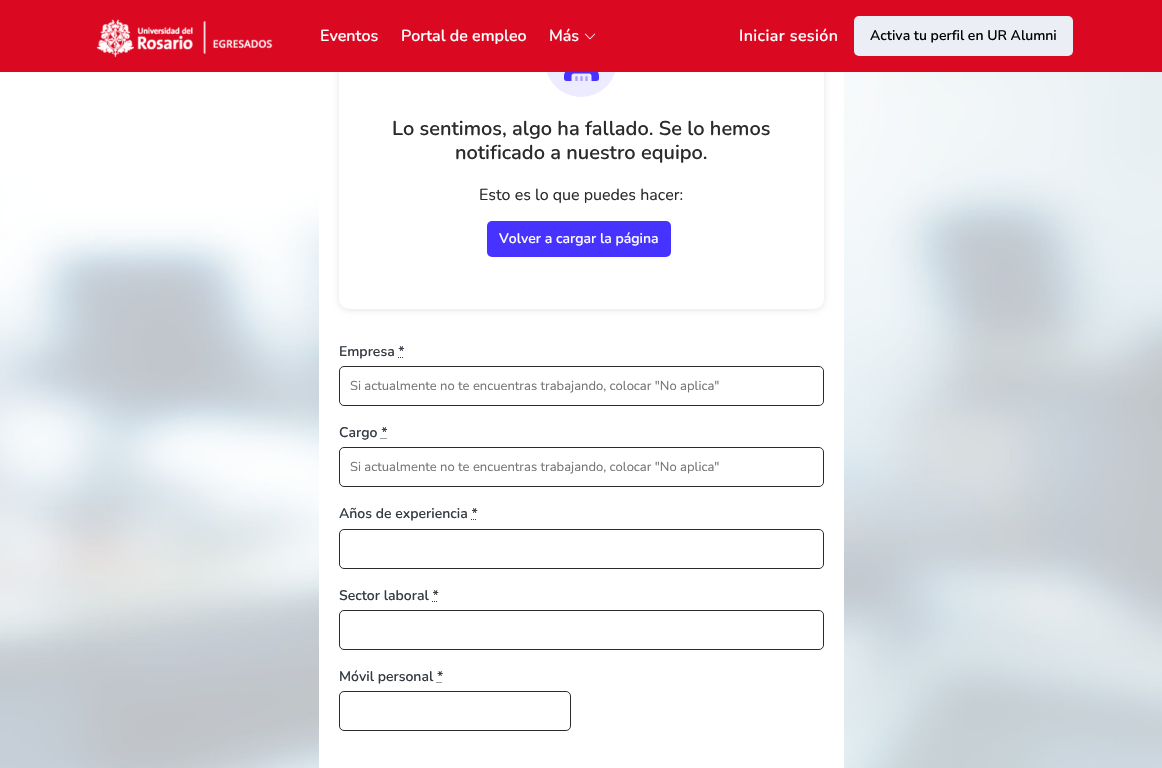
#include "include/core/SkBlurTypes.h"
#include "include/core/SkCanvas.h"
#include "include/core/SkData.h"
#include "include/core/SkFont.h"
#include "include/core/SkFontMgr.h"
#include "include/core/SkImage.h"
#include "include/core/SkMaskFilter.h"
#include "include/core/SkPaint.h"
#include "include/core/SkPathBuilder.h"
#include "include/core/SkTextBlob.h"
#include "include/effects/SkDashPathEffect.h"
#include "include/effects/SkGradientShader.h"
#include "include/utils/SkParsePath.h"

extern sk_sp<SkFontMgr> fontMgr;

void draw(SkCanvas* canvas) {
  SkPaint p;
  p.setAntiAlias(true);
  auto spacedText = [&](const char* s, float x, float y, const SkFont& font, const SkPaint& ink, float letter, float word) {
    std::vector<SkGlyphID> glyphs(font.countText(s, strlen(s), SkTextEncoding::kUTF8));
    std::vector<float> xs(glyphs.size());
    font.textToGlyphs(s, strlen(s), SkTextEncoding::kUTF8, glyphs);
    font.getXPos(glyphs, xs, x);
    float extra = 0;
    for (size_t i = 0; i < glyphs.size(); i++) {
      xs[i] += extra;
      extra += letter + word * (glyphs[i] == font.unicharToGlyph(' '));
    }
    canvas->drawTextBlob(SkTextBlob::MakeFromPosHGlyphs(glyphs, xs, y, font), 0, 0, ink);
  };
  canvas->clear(SK_ColorWHITE);
  canvas->drawImageRect(SkImages::DeferredFromEncodedData(SkData::MakeFromFileName("images/3.png")), SkRect::MakeLTRB(0, 72, 1162, 768), SkSamplingOptions());
  p.setColor(SK_ColorWHITE);
  canvas->drawRect(SkRect::MakeLTRB(319, 72, 844, 768), p);
  p.setColor(SkColorSetARGB(26, 0, 0, 0));
  p.setMaskFilter(SkMaskFilter::MakeBlur(kNormal_SkBlurStyle, 3));
  canvas->drawRoundRect(SkRect::MakeLTRB(339, -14, 824, 310), 10, 10, p);
  p.setMaskFilter(nullptr);
  p.setColor(SK_ColorWHITE);
  canvas->drawRoundRect(SkRect::MakeLTRB(339, -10, 824, 309), 10, 10, p);
  p.setColor(SkColorSetRGB(237, 235, 255));
  canvas->drawCircle(581, 61, 36, p);
  p.setColor(SkColorSetRGB(218, 9, 33));
  canvas->drawRect(SkRect::MakeLTRB(0, 0, 1162, 72), p);
  canvas->drawImageRect(SkImages::DeferredFromEncodedData(SkData::MakeFromFileName("images/1.png")), SkRect::MakeLTRB(96, 19, 273, 58), SkSamplingOptions());
  canvas->drawImageRect(SkImages::DeferredFromEncodedData(SkData::MakeFromFileName("images/2.png")), SkRect::MakeLTRB(584, 33, 596, 40), SkSamplingOptions());
  p.setColor(SkColorSetRGB(235, 238, 244));
  canvas->drawRoundRect(SkRect::MakeLTRB(854, 16, 1073, 56), 5, 5, p);
  canvas->drawImageRect(SkImages::DeferredFromEncodedData(SkData::MakeFromFileName("images/4.png")), SkRect::MakeLTRB(564, 72, 599, 81), SkSamplingOptions());
  p.setColor(SkColorSetRGB(71, 51, 255));
  canvas->drawRoundRect(SkRect::MakeLTRB(487, 221, 671, 257), 5, 5, p);
  p.setStyle(SkPaint::kStroke_Style);
  p.setStrokeWidth(1);
  p.setColor(SkColorSetRGB(53, 59, 66));
  canvas->drawPath(SkPathBuilder().moveTo(398, 357.5f).lineTo(399, 357.5f).moveTo(400, 357.5f).lineTo(401, 357.5f).moveTo(402, 357.5f).lineTo(403, 357.5f).moveTo(404, 357.5f).lineTo(404, 357.5f).detach(), p);
  p.setColor(SkColorSetRGB(43, 43, 43));
  canvas->drawRoundRect(SkRect::MakeLTRB(339.5f, 366.5f, 823.5f, 405.5f), 4.5f, 4.5f, p);
  p.setColor(SkColorSetRGB(53, 59, 66));
  canvas->drawPath(SkPathBuilder().moveTo(380.5f, 438.5f).lineTo(381.5f, 438.5f).moveTo(382.5f, 438.5f).lineTo(383.5f, 438.5f).moveTo(384.5f, 438.5f).lineTo(385.5f, 438.5f).moveTo(386.5f, 438.5f).lineTo(387, 438.5f).detach(), p);
  p.setColor(SkColorSetRGB(43, 43, 43));
  canvas->drawRoundRect(SkRect::MakeLTRB(339.5f, 447.5f, 823.5f, 486.5f), 4.5f, 4.5f, p);
  p.setColor(SkColorSetRGB(53, 59, 66));
  canvas->drawPath(SkPathBuilder().moveTo(471, 519.5f).lineTo(472, 519.5f).moveTo(473, 519.5f).lineTo(474, 519.5f).moveTo(475, 519.5f).lineTo(476, 519.5f).moveTo(477, 519.5f).lineTo(477, 519.5f).detach(), p);
  p.setColor(SkColorSetRGB(43, 43, 43));
  canvas->drawRoundRect(SkRect::MakeLTRB(339.5f, 529.5f, 823.5f, 568.5f), 4.5f, 4.5f, p);
  p.setColor(SkColorSetRGB(53, 59, 66));
  canvas->drawPath(SkPathBuilder().moveTo(432, 601.5f).lineTo(433, 601.5f).moveTo(434, 601.5f).lineTo(435, 601.5f).moveTo(436, 601.5f).lineTo(437, 601.5f).moveTo(438, 601.5f).lineTo(438, 601.5f).detach(), p);
  p.setColor(SkColorSetRGB(43, 43, 43));
  canvas->drawRoundRect(SkRect::MakeLTRB(339.5f, 610.5f, 823.5f, 649.5f), 4.5f, 4.5f, p);
  p.setColor(SkColorSetRGB(53, 59, 66));
  canvas->drawPath(SkPathBuilder().moveTo(436.5f, 682.5f).lineTo(437.5f, 682.5f).moveTo(438.5f, 682.5f).lineTo(439.5f, 682.5f).moveTo(440.5f, 682.5f).lineTo(441.5f, 682.5f).moveTo(442.5f, 682.5f).lineTo(442.5f, 682.5f).detach(), p);
  p.setColor(SkColorSetRGB(43, 43, 43));
  canvas->drawRoundRect(SkRect::MakeLTRB(339.5f, 691.5f, 570.5f, 730.5f), 4.5f, 4.5f, p);
  SkFont font1(fontMgr->matchFamilyStyle("Nunito", SkFontStyle(600, SkFontStyle::kNormal_Width, SkFontStyle::kUpright_Slant)), 16);
  font1.setSubpixel(true);
  p.setStyle(SkPaint::kFill_Style);
  p.setColor(SK_ColorWHITE);
  canvas->drawString("Eventos", 320, 41, font1, p);
  canvas->drawString("Portal de empleo", 401, 41, font1, p);
  canvas->drawString("Más", 549, 41, font1, p);
  spacedText("Iniciar sesión", 739, 41, font1, p, 0.4f, 0);
  SkFont font2(fontMgr->matchFamilyStyle("Nunito", SkFontStyle(600, SkFontStyle::kNormal_Width, SkFontStyle::kUpright_Slant)), 14);
  font2.setSubpixel(true);
  p.setColor(SkColorSetRGB(5, 5, 5));
  canvas->drawString("Activa tu perfil en UR Alumni", 870, 40, font2, p);
  SkFont font3(fontMgr->matchFamilyStyle("Nunito", SkFontStyle(600, SkFontStyle::kNormal_Width, SkFontStyle::kUpright_Slant)), 20);
  font3.setSubpixel(true);
  p.setColor(SkColorSetRGB(43, 43, 43));
  canvas->drawString("Lo sentimos, algo ha fallado. Se lo hemos", 392, 135, font3, p);
  canvas->drawString("notificado a nuestro equipo.", 455, 159, font3, p);
  SkFont font4(fontMgr->matchFamilyStyle("Nunito", SkFontStyle::Normal()), 16);
  font4.setSubpixel(true);
  canvas->drawString("Esto es lo que puedes hacer:", 479, 200, font4, p);
  p.setColor(SK_ColorWHITE);
  canvas->drawString("Volver a cargar la página", 499, 243, font2, p);
  p.setColor(SkColorSetRGB(53, 59, 66));
  canvas->drawString("Empresa *", 339, 356, font2, p);
  SkFont font5(fontMgr->matchFamilyStyle("Nunito", SkFontStyle::Normal()), 13);
  font5.setSubpixel(true);
  p.setColor(SkColorSetRGB(117, 117, 117));
  canvas->drawString("Si actualmente no te encuentras trabajando, colocar \"No aplica\"", 350, 390, font5, p);
  p.setColor(SkColorSetRGB(53, 59, 66));
  canvas->drawString("Cargo *", 339, 437, font2, p);
  p.setColor(SkColorSetRGB(117, 117, 117));
  canvas->drawString("Si actualmente no te encuentras trabajando, colocar \"No aplica\"", 350, 471, font5, p);
  p.setColor(SkColorSetRGB(53, 59, 66));
  canvas->drawString("Años de experiencia *", 339, 518, font2, p);
  canvas->drawString("Sector laboral *", 339, 600, font2, p);
  canvas->drawString("Móvil personal *", 339, 681, font2, p);
}
